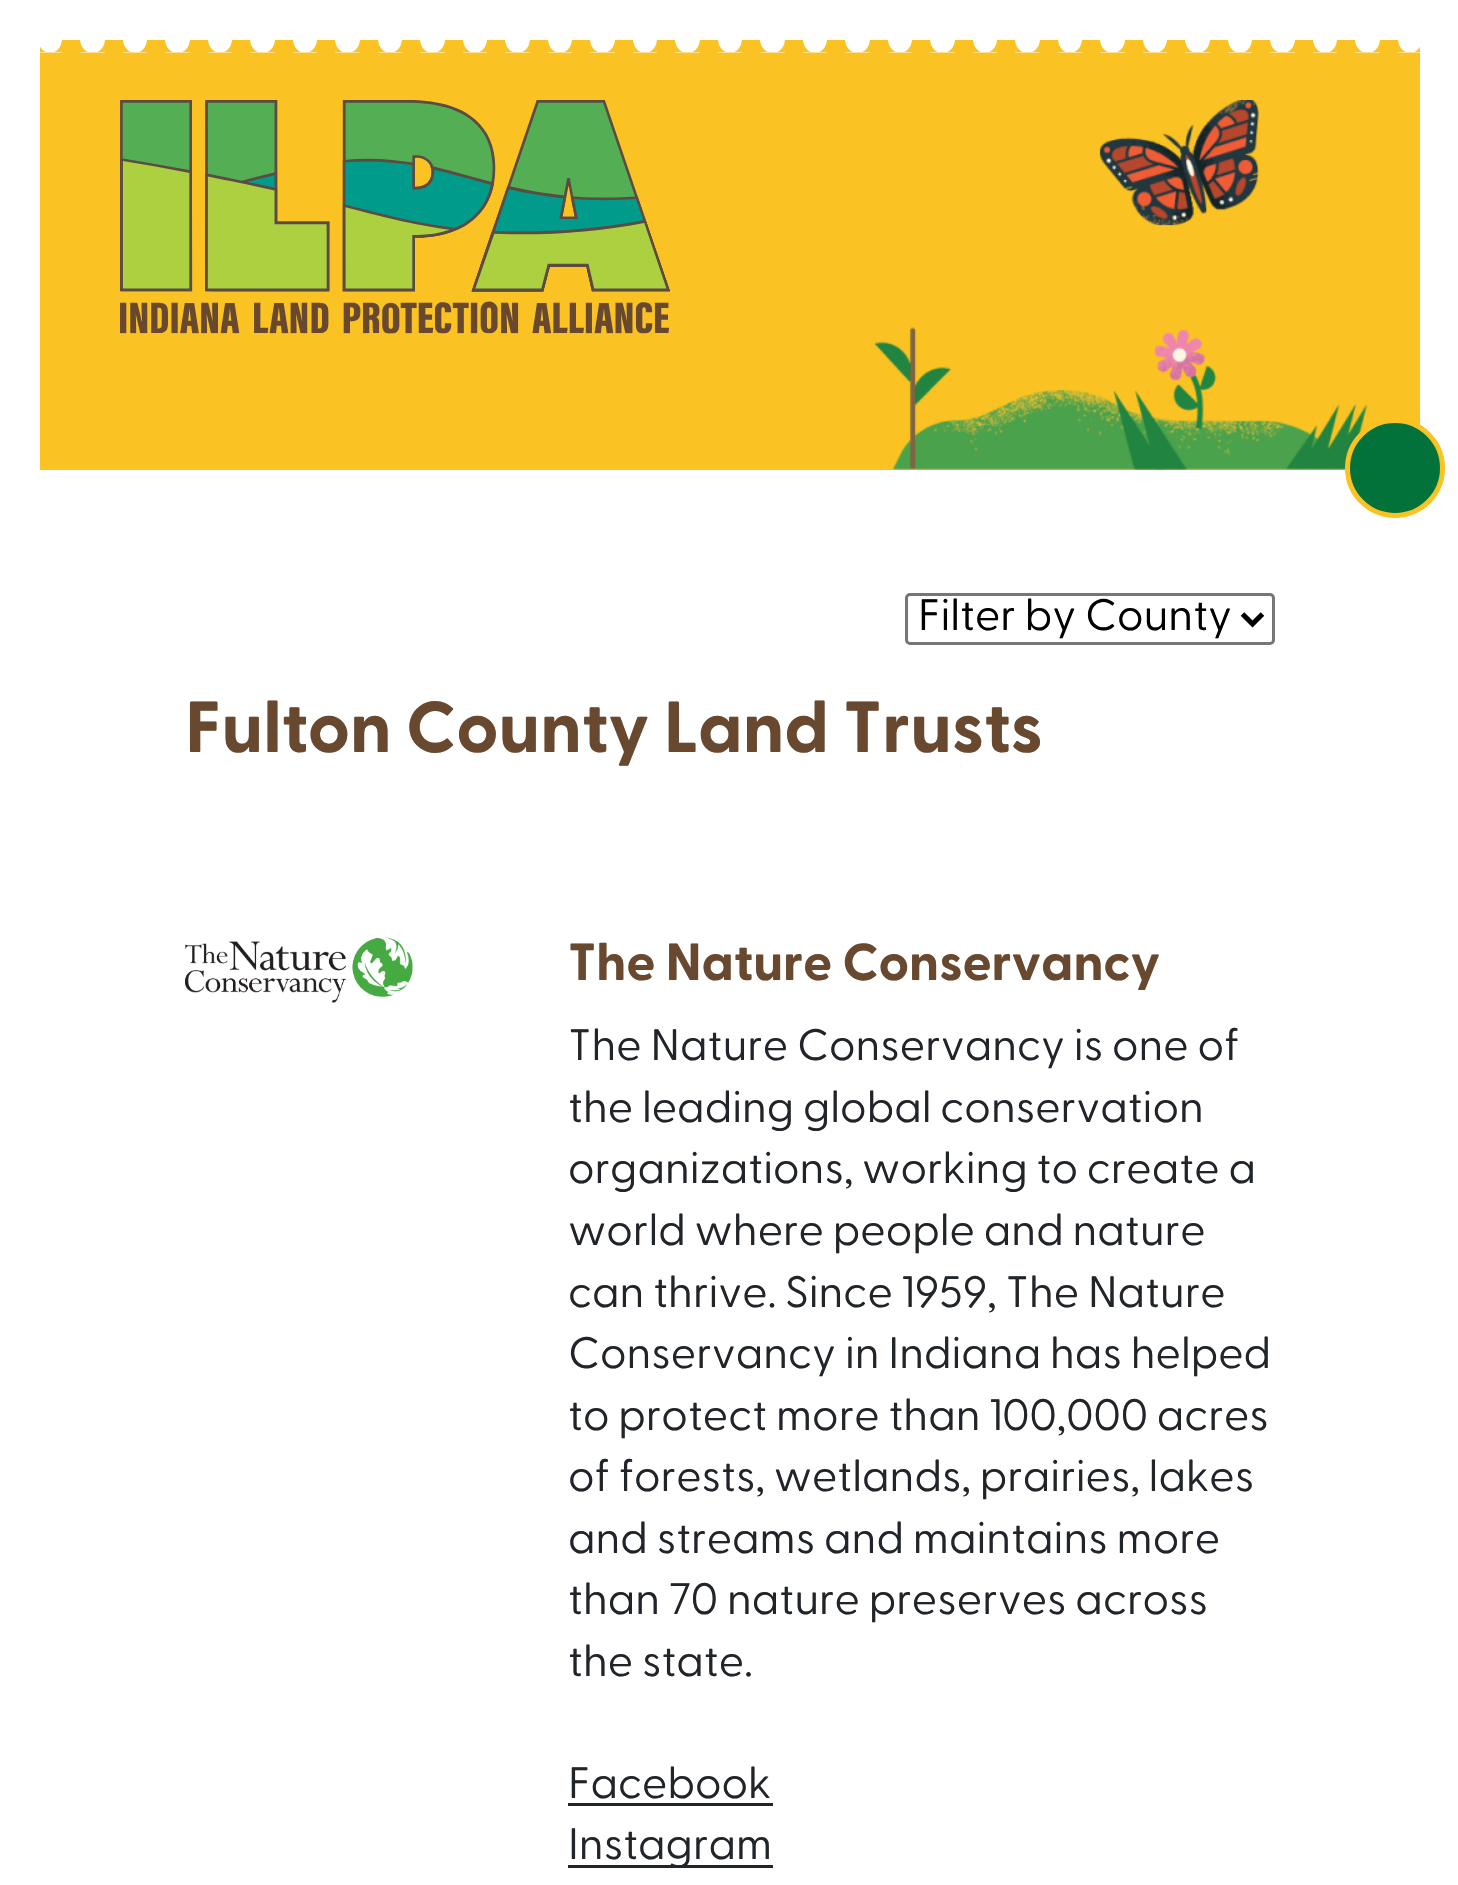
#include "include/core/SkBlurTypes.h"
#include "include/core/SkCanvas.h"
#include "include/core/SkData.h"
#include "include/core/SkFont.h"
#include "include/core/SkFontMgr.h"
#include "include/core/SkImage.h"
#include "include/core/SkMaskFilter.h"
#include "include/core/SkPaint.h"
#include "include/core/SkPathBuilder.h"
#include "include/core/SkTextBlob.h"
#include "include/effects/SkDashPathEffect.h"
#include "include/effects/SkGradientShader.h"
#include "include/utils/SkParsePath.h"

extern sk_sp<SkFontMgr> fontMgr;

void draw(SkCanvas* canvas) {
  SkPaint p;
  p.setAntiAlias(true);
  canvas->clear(SK_ColorWHITE);
  p.setColor(SkColorSetRGB(250, 195, 35));
  canvas->drawRect(SkRect::MakeLTRB(40, 40, 1420, 470), p);
  canvas->drawImageRect(SkImages::DeferredFromEncodedData(SkData::MakeFromFileName("images/1.png")), SkRect::MakeLTRB(40, 40, 1420, 53), SkSamplingOptions());
  canvas->drawImageRect(SkImages::DeferredFromEncodedData(SkData::MakeFromFileName("images/2.png")), SkRect::MakeLTRB(120, 100, 670, 334), SkSamplingOptions());
  canvas->drawImageRect(SkImages::DeferredFromEncodedData(SkData::MakeFromFileName("images/3.png")), SkRect::MakeLTRB(875, 100, 1368, 470), SkSamplingOptions());
  p.setColor(SkColorSetRGB(3, 113, 58));
  canvas->drawCircle(1395, 468, 47.5f, p);
  p.setStyle(SkPaint::kStroke_Style);
  p.setStrokeWidth(5);
  p.setColor(SkColorSetRGB(250, 195, 35));
  canvas->drawCircle(1395, 468, 47.5f, p);
  p.setStrokeWidth(3);
  p.setColor(SkColorSetRGB(118, 118, 118));
  canvas->drawRoundRect(SkRect::MakeLTRB(906.5f, 594.5f, 1273.5f, 643.5f), 3.5f, 3.5f, p);
  p.setStrokeWidth(5);
  p.setColor(SK_ColorBLACK);
  canvas->drawPath(SkPathBuilder().moveTo(1242.5f, 614).lineTo(1252.5f, 624).lineTo(1262.5f, 614).detach(), p);
  canvas->drawImageRect(SkImages::DeferredFromEncodedData(SkData::MakeFromFileName("images/4.png")), SkRect::MakeLTRB(185, 937, 413, 1003), SkSamplingOptions());
  p.setStyle(SkPaint::kFill_Style);
  p.setColor(SkColorSetRGB(33, 37, 41));
  canvas->drawRect(SkRect::MakeLTRB(568, 1803, 773, 1806), p);
  canvas->drawRect(SkRect::MakeLTRB(568, 1865, 773, 1868), p);
  SkFont font1(fontMgr->matchFamilyStyle("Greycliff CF", SkFontStyle::Normal()), 44);
  font1.setSubpixel(true);
  p.setColor(SK_ColorBLACK);
  canvas->drawString("Filter by County", 918, 630, font1, p);
  SkFont font2(fontMgr->matchFamilyStyle("Greycliff CF", SkFontStyle::Bold()), 72);
  font2.setSubpixel(true);
  p.setColor(SkColorSetRGB(104, 72, 46));
  canvas->drawString("Fulton County Land Trusts", 185, 752, font2, p);
  SkFont font3(fontMgr->matchFamilyStyle("Greycliff CF", SkFontStyle::Bold()), 52);
  font3.setSubpixel(true);
  canvas->drawString("The Nature Conservancy", 568, 980, font3, p);
  p.setColor(SkColorSetRGB(33, 37, 41));
  canvas->drawString("The Nature Conservancy is one of", 568, 1060, font1, p);
  canvas->drawString("the leading global conservation", 568, 1122, font1, p);
  canvas->drawString("organizations, working to create a", 568, 1183, font1, p);
  canvas->drawString("world where people and nature", 568, 1245, font1, p);
  canvas->drawString("can thrive. Since 1959, The Nature", 568, 1307, font1, p);
  canvas->drawString("Conservancy in Indiana has helped", 568, 1368, font1, p);
  canvas->drawString("to protect more than 100,000 acres", 568, 1430, font1, p);
  canvas->drawString("of forests, wetlands, prairies, lakes", 568, 1491, font1, p);
  canvas->drawString("and streams and maintains more", 568, 1553, font1, p);
  canvas->drawString("than 70 nature preserves across", 568, 1614, font1, p);
  canvas->drawString("the state.", 568, 1676, font1, p);
  canvas->drawString("Facebook", 568, 1798, font1, p);
  canvas->drawString("Instagram", 568, 1859, font1, p);
}
